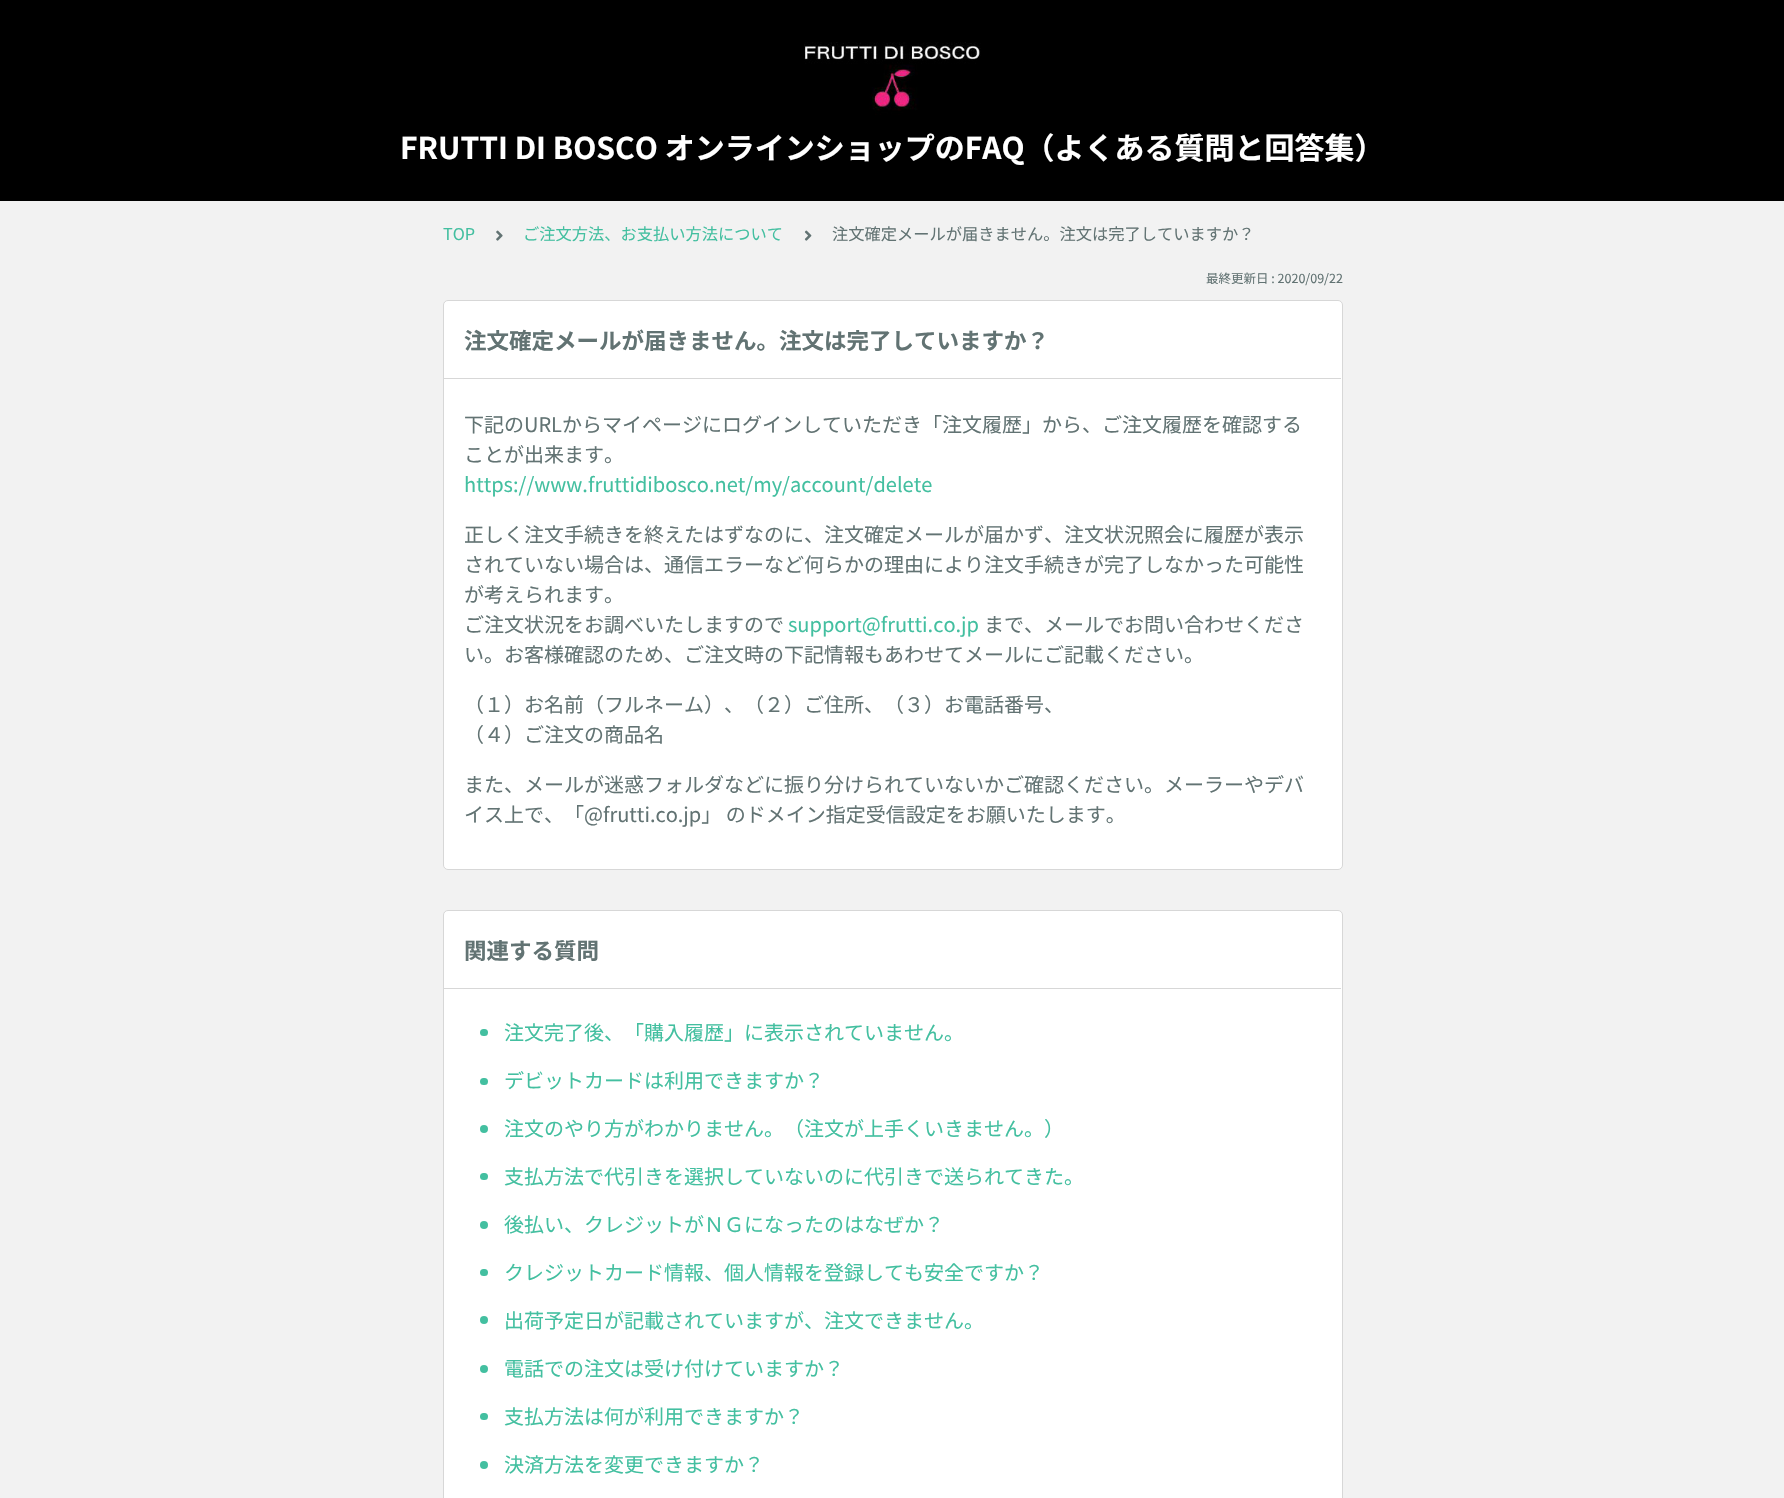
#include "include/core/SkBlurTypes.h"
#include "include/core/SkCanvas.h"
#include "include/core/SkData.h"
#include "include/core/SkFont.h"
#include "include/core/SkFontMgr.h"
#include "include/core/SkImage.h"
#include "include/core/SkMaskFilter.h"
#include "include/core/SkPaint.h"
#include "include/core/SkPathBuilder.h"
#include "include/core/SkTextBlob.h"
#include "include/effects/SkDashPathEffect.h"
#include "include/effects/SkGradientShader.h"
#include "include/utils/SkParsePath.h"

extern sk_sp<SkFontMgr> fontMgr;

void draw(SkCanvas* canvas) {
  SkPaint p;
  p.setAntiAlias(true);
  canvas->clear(SkColorSetRGB(242, 242, 242));
  p.setColor(SK_ColorBLACK);
  canvas->drawRect(SkRect::MakeLTRB(0, 0, 1784, 201), p);
  canvas->drawImageRect(SkImages::DeferredFromEncodedData(SkData::MakeFromFileName("images/1.png")), SkRect::MakeLTRB(804, 42, 981, 115), SkSamplingOptions());
  canvas->drawImageRect(SkImages::DeferredFromEncodedData(SkData::MakeFromFileName("images/2.png")), SkRect::MakeLTRB(496, 230, 503, 241), SkSamplingOptions());
  canvas->drawImageRect(SkImages::DeferredFromEncodedData(SkData::MakeFromFileName("images/3.png")), SkRect::MakeLTRB(804, 230, 812, 241), SkSamplingOptions());
  p.setColor(SK_ColorWHITE);
  canvas->drawRoundRect(SkRect::MakeLTRB(443.5f, 300.5f, 1342.5f, 869.5f), 4.5f, 4.5f, p);
  p.setStyle(SkPaint::kStroke_Style);
  p.setStrokeWidth(1);
  p.setColor(SkColorSetRGB(215, 215, 215));
  canvas->drawRoundRect(SkRect::MakeLTRB(443.5f, 300.5f, 1342.5f, 869.5f), 4.5f, 4.5f, p);
  p.setStyle(SkPaint::kFill_Style);
  canvas->drawRect(SkRect::MakeLTRB(444, 378, 1341, 379), p);
  p.setColor(SK_ColorWHITE);
  canvas->drawRoundRect(SkRect::MakeLTRB(443.5f, 910.5f, 1342.5f, 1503.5f), 4.5f, 4.5f, p);
  p.setStyle(SkPaint::kStroke_Style);
  p.setColor(SkColorSetRGB(215, 215, 215));
  canvas->drawRoundRect(SkRect::MakeLTRB(443.5f, 910.5f, 1342.5f, 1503.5f), 4.5f, 4.5f, p);
  p.setStyle(SkPaint::kFill_Style);
  canvas->drawRect(SkRect::MakeLTRB(444, 988, 1341, 989), p);
  p.setColor(SkColorSetRGB(67, 191, 160));
  canvas->drawRoundRect(SkRect::MakeLTRB(480, 1029, 488, 1036), 3.5f, 3.5f, p);
  canvas->drawRoundRect(SkRect::MakeLTRB(480, 1078, 488, 1085), 3.5f, 3.5f, p);
  canvas->drawCircle(484, 1129, 4, p);
  canvas->drawRoundRect(SkRect::MakeLTRB(480, 1173, 488, 1180), 3.5f, 3.5f, p);
  canvas->drawCircle(484, 1225, 4, p);
  canvas->drawRoundRect(SkRect::MakeLTRB(480, 1269, 488, 1276), 3.5f, 3.5f, p);
  canvas->drawCircle(484, 1320, 4, p);
  canvas->drawCircle(484, 1369, 4, p);
  canvas->drawRoundRect(SkRect::MakeLTRB(480, 1413, 488, 1420), 3.5f, 3.5f, p);
  canvas->drawCircle(484, 1465, 4, p);
  SkFont font1(fontMgr->matchFamilyStyle("Noto Sans JP", SkFontStyle::Bold()), 30);
  font1.setSubpixel(true);
  p.setColor(SK_ColorWHITE);
  canvas->drawString("FRUTTI DI BOSCO オンラインショップのFAQ（よくある質問と回答集）", 400, 159, font1, p);
  SkFont font2(fontMgr->matchFamilyStyle("Noto Sans JP", SkFontStyle::Normal()), 16.25f);
  font2.setSubpixel(true);
  p.setColor(SkColorSetRGB(67, 191, 160));
  canvas->drawString("TOP", 443, 240, font2, p);
  canvas->drawString("ご注文方法、お支払い方法について", 523, 240, font2, p);
  p.setColor(SkColorSetRGB(98, 115, 115));
  canvas->drawString("注文確定メールが届きません。注文は完了していますか？", 832, 240, font2, p);
  SkFont font3(fontMgr->matchFamilyStyle("Noto Sans JP", SkFontStyle::Normal()), 12.5f);
  font3.setSubpixel(true);
  canvas->drawString("最終更新日 : 2020/09/22", 1206, 283, font3, p);
  SkFont font4(fontMgr->matchFamilyStyle("Noto Sans JP", SkFontStyle::Bold()), 22.5f);
  font4.setSubpixel(true);
  canvas->drawString("注文確定メールが届きません。注文は完了していますか？", 464, 349, font4, p);
  SkFont font5(fontMgr->matchFamilyStyle("Noto Sans JP", SkFontStyle::Normal()), 20);
  font5.setSubpixel(true);
  canvas->drawString("下記のURLからマイページにログインしていただき「注文履歴」から、ご注文履歴を確認する", 464, 432, font5, p);
  canvas->drawString("ことが出来ます。", 464, 462, font5, p);
  p.setColor(SkColorSetRGB(67, 191, 160));
  canvas->drawString("https://www.fruttidibosco.net/my/account/delete", 464, 492, font5, p);
  p.setColor(SkColorSetRGB(98, 115, 115));
  canvas->drawString("正しく注文手続きを終えたはずなのに、注文確定メールが届かず、注文状況照会に履歴が表示", 464, 542, font5, p);
  canvas->drawString("されていない場合は、通信エラーなど何らかの理由により注文手続きが完了しなかった可能性", 464, 572, font5, p);
  canvas->drawString("が考えられます。", 464, 602, font5, p);
  canvas->drawString("ご注文状況をお調べいたしますので", 464, 632, font5, p);
  p.setColor(SkColorSetRGB(67, 191, 160));
  canvas->drawString("support@frutti.co.jp", 788, 632, font5, p);
  p.setColor(SkColorSetRGB(98, 115, 115));
  canvas->drawString("まで、メールでお問い合わせくださ", 984, 632, font5, p);
  canvas->drawString("い。お客様確認のため、ご注文時の下記情報もあわせてメールにご記載ください。", 464, 662, font5, p);
  canvas->drawString("（１）お名前（フルネーム）、（２）ご住所、（３）お電話番号、", 464, 712, font5, p);
  canvas->drawString("（４）ご注文の商品名", 464, 742, font5, p);
  canvas->drawString("また、メールが迷惑フォルダなどに振り分けられていないかご確認ください。メーラーやデバ", 464, 792, font5, p);
  canvas->drawString("イス上で、「@frutti.co.jp」 のドメイン指定受信設定をお願いたします。", 464, 822, font5, p);
  canvas->drawString("関連する質問", 464, 959, font4, p);
  p.setColor(SkColorSetRGB(67, 191, 160));
  canvas->drawString("注文完了後、「購入履歴」に表示されていません。", 504, 1040, font5, p);
  canvas->drawString("デビットカードは利用できますか？", 504, 1088, font5, p);
  canvas->drawString("注文のやり方がわかりません。（注文が上手くいきません。）", 504, 1136, font5, p);
  canvas->drawString("支払方法で代引きを選択していないのに代引きで送られてきた。", 504, 1184, font5, p);
  canvas->drawString("後払い、クレジットがＮＧになったのはなぜか？", 504, 1232, font5, p);
  canvas->drawString("クレジットカード情報、個人情報を登録しても安全ですか？", 504, 1280, font5, p);
  canvas->drawString("出荷予定日が記載されていますが、注文できません。", 504, 1328, font5, p);
  canvas->drawString("電話での注文は受け付けていますか？", 504, 1376, font5, p);
  canvas->drawString("支払方法は何が利用できますか？", 504, 1424, font5, p);
  canvas->drawString("決済方法を変更できますか？", 504, 1472, font5, p);
}
